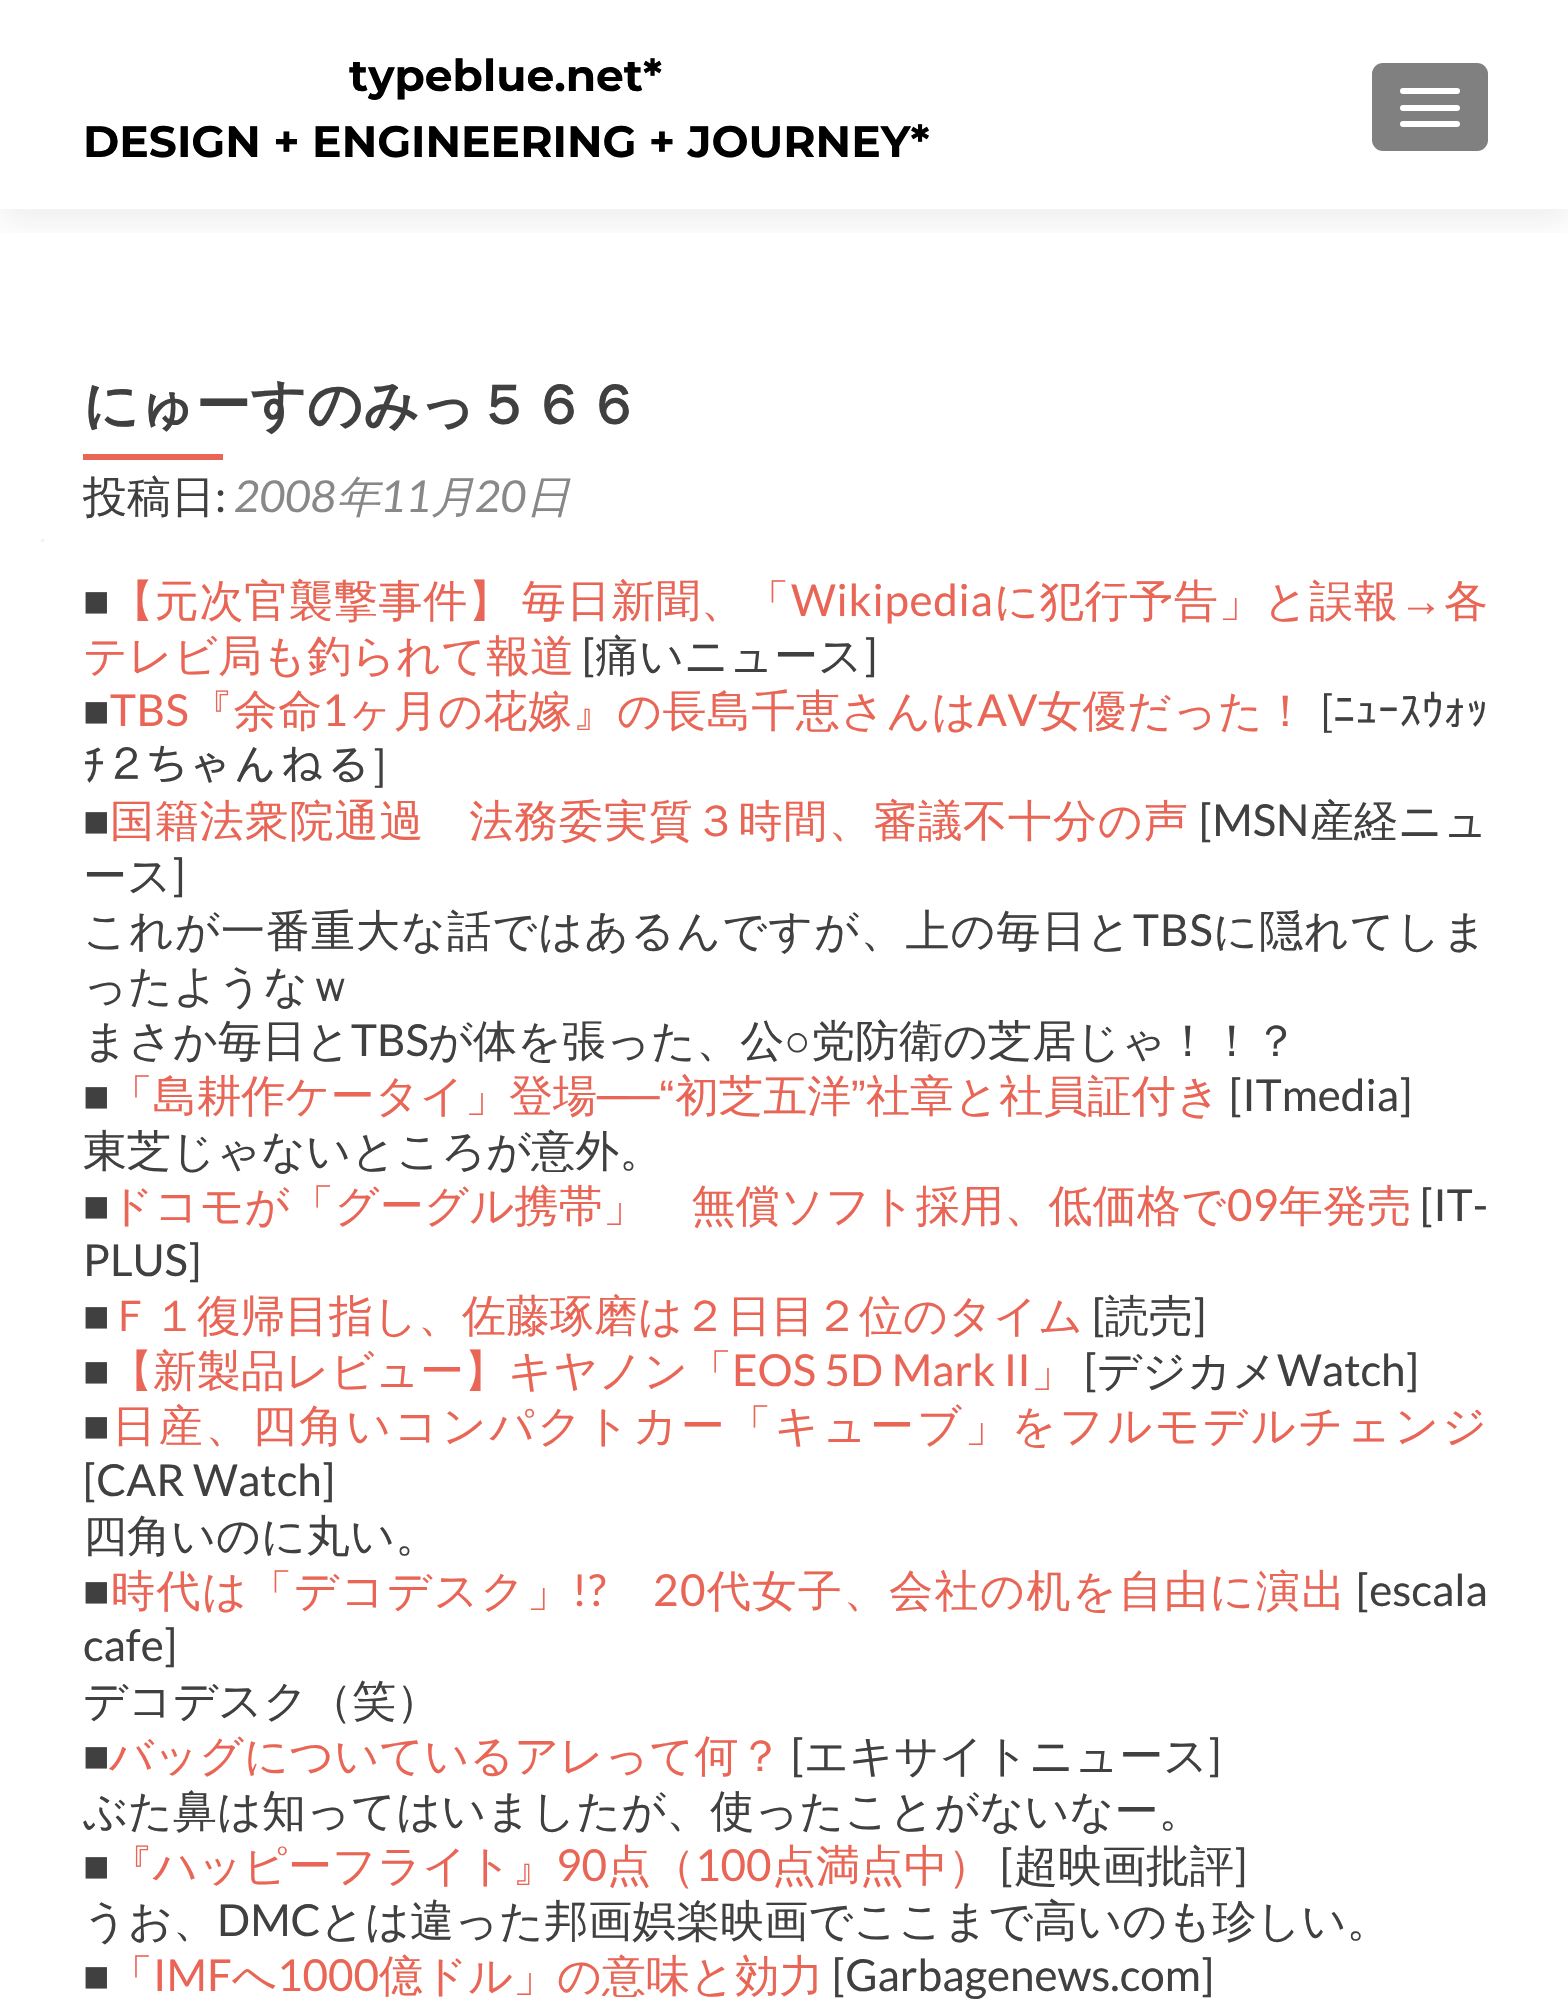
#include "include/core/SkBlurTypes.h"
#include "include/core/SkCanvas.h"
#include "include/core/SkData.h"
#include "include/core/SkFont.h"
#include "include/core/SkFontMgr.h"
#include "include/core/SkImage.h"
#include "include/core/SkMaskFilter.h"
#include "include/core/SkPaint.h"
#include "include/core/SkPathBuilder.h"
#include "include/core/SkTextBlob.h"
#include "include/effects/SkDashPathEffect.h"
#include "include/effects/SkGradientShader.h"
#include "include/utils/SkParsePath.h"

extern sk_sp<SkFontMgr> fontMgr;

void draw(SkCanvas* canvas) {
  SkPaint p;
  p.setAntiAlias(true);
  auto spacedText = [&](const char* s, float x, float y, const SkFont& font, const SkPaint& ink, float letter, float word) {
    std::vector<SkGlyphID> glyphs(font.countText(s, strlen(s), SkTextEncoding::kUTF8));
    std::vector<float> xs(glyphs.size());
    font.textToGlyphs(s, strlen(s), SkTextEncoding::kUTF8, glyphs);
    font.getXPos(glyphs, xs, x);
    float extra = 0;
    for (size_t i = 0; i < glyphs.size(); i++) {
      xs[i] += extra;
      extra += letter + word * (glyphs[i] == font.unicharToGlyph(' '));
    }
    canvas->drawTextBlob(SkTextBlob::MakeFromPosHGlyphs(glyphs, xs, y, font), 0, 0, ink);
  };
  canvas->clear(SK_ColorWHITE);
  canvas->save();
  canvas->clipRect(SkRect::MakeLTRB(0, 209, 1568, 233));
  p.setColor(SkColorSetARGB(20, 50, 50, 50));
  p.setMaskFilter(SkMaskFilter::MakeBlur(kNormal_SkBlurStyle, 15));
  canvas->drawRect(SkRect::MakeLTRB(0, 14, 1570, 223), p);
  p.setMaskFilter(nullptr);
  canvas->restore();
  p.setColor(SkColorSetRGB(128, 128, 128));
  canvas->drawRoundRect(SkRect::MakeLTRB(1372, 63, 1488, 151), 11, 11, p);
  p.setColor(SK_ColorWHITE);
  canvas->drawRoundRect(SkRect::MakeLTRB(1400, 88, 1460, 94), 3, 3, p);
  canvas->drawRoundRect(SkRect::MakeLTRB(1400, 105, 1460, 111), 3, 3, p);
  canvas->drawRoundRect(SkRect::MakeLTRB(1400, 121, 1460, 127), 3, 3, p);
  p.setColor(SkColorSetRGB(242, 242, 242));
  canvas->drawRect(SkRect::MakeLTRB(41, 539, 44, 542), p);
  p.setColor(SkColorSetRGB(233, 102, 86));
  canvas->drawRect(SkRect::MakeLTRB(83, 454, 223, 460), p);
  SkFont font1(fontMgr->matchFamilyStyle("Montserrat", SkFontStyle::Bold()), 44);
  font1.setSubpixel(true);
  p.setColor(SK_ColorBLACK);
  canvas->drawString("typeblue.net*", 349, 91, font1, p);
  canvas->drawString("DESIGN + ENGINEERING + JOURNEY*", 83, 157, font1, p);
  SkFont font2(fontMgr->matchFamilyStyle("WenQuanYi Zen Hei", SkFontStyle::Bold()), 55);
  font2.setSubpixel(true);
  p.setColor(SkColorSetRGB(64, 64, 64));
  canvas->drawString("にゅーすのみっ５６６", 83, 424, font2, p);
  canvas->save();
  canvas->clipRect(SkRect::MakeLTRB(83, 374, 1488, 528));
  SkFont font3(fontMgr->matchFamilyStyle("WenQuanYi Zen Hei", SkFontStyle(500, SkFontStyle::kNormal_Width, SkFontStyle::kUpright_Slant)), 44);
  font3.setSubpixel(true);
  canvas->drawString("投稿日", 83, 512, font3, p);
  canvas->restore();
  SkFont font4(fontMgr->matchFamilyStyle("Lato", SkFontStyle::Normal()), 44);
  font4.setSubpixel(true);
  canvas->drawString(":", 215, 512, font4, p);
  SkFont font5(fontMgr->matchFamilyStyle("Lato", SkFontStyle::Italic()), 44);
  font5.setSubpixel(true);
  p.setColor(SkColorSetRGB(136, 136, 136));
  canvas->drawString("2008", 234, 512, font5, p);
  SkFont font6(fontMgr->matchFamilyStyle("WenQuanYi Zen Hei", SkFontStyle(500, SkFontStyle::kNormal_Width, SkFontStyle::kItalic_Slant)), 44);
  font6.setSubpixel(true);
  canvas->drawString("年", 336, 512, font6, p);
  canvas->drawString("11", 380, 512, font5, p);
  canvas->drawString("月", 431, 512, font6, p);
  canvas->drawString("20", 475, 512, font5, p);
  canvas->drawString("日", 526, 512, font6, p);
  SkFont font7(fontMgr->matchFamilyStyle("Liberation Sans", SkFontStyle::Normal()), 44);
  font7.setSubpixel(true);
  p.setColor(SkColorSetRGB(64, 64, 64));
  canvas->drawString("■", 83, 616, font7, p);
  p.setColor(SkColorSetRGB(233, 102, 86));
  spacedText("【元次官襲撃事件】 毎日新聞、「", 110, 616, font3, p, 0.75f, -5);
  spacedText("Wikipedia", 791, 616, font4, p, 0.75f, 0);
  spacedText("に犯行予告」と誤報", 994, 616, font3, p, 0.75f, 0);
  spacedText("→", 1399, 616, font7, p, 0.75f, 0);
  spacedText("各", 1444, 616, font3, p, 0.75f, 0);
  canvas->drawString("テレビ局も釣られて報道", 83, 671, font3, p);
  p.setColor(SkColorSetRGB(64, 64, 64));
  canvas->drawString("[", 582, 671, font4, p);
  canvas->drawString("痛いニュース", 595, 671, font3, p);
  canvas->drawString("]", 864, 671, font4, p);
  canvas->drawString("■", 83, 726, font7, p);
  p.setColor(SkColorSetRGB(233, 102, 86));
  spacedText("TBS", 110, 726, font4, p, 0.5f, 0);
  spacedText("『余命", 189, 726, font3, p, 0.5f, 0);
  spacedText("1", 322, 726, font4, p, 0.5f, 0);
  spacedText("ヶ月の花嫁』の長島千恵さんは", 348, 726, font3, p, 0.5f, 0);
  spacedText("AV", 977, 726, font4, p, 0.5f, 0);
  spacedText("女優だった！", 1038, 726, font3, p, 0.5f, 0);
  SkFont font8(fontMgr->matchFamilyStyle("IPAPGothic", SkFontStyle::Normal()), 44);
  font8.setSubpixel(true);
  p.setColor(SkColorSetRGB(64, 64, 64));
  spacedText("[ﾆｭｰｽｳｫｯ", 1320, 726, font8, p, 0.1f, 0);
  spacedText("ﾁ２ちゃんねる]", 83, 781, font8, p, 6.75f, 0);
  canvas->drawString("■", 83, 836, font7, p);
  p.setColor(SkColorSetRGB(233, 102, 86));
  spacedText("国籍法衆院通過　法務委実質３時間、審議不十分の声", 110, 836, font3, p, 0.9f, 0);
  p.setColor(SkColorSetRGB(64, 64, 64));
  canvas->drawString("[MSN", 1199, 836, font4, p);
  canvas->drawString("産経ニュ", 1310, 836, font3, p);
  canvas->drawString("ース", 83, 891, font3, p);
  canvas->drawString("]", 172, 891, font4, p);
  spacedText("これが一番重大な話ではあるんですが、上の毎日と", 83, 946, font3, p, 1, 0);
  spacedText("TBS", 1133, 946, font4, p, 1, 0);
  spacedText("に隠れてしま", 1213, 946, font3, p, 1, 0);
  canvas->drawString("ったようなｗ", 83, 1001, font3, p);
  canvas->drawString("まさか毎日と", 83, 1056, font3, p);
  canvas->drawString("TBS", 351, 1056, font4, p);
  canvas->drawString("が体を張った、公", 428, 1056, font3, p);
  canvas->drawString("○", 784, 1056, font7, p);
  canvas->drawString("党防衛の芝居じゃ！！？", 811, 1056, font3, p);
  p.setColor(SkColorSetRGB(233, 102, 86));
  spacedText("「島耕作ケータイ」登場", 109, 1111, font3, p, 0.1f, 0);
  spacedText("──“", 597, 1111, font7, p, 0.1f, 0);
  spacedText("初芝五洋", 675, 1111, font3, p, 0.1f, 0);
  spacedText("”", 851, 1111, font7, p, 0.1f, 0);
  spacedText("社章と社員証付き", 866, 1111, font3, p, 0.1f, 0);
  p.setColor(SkColorSetRGB(64, 64, 64));
  canvas->drawString("[ITmedia]", 1229, 1111, font4, p);
  canvas->drawString("■", 83, 1111, font7, p);
  canvas->drawString("東芝じゃないところが意外。", 83, 1166, font3, p);
  canvas->drawString("■", 83, 1221, font7, p);
  p.setColor(SkColorSetRGB(233, 102, 86));
  spacedText("ドコモが「グーグル携帯」　無償ソフト採用、低価格で", 109, 1221, font3, p, 0.25f, 0);
  spacedText("09", 1227, 1221, font4, p, 0.25f, 0);
  spacedText("年発売", 1279, 1221, font3, p, 0.25f, 0);
  p.setColor(SkColorSetRGB(64, 64, 64));
  canvas->drawString("[IT-", 1420, 1221, font4, p);
  canvas->drawString("PLUS]", 83, 1276, font4, p);
  canvas->drawString("■", 83, 1331, font7, p);
  p.setColor(SkColorSetRGB(233, 102, 86));
  canvas->drawString("Ｆ１復帰目指し、佐藤琢磨は２日目２位のタイム", 109, 1331, font3, p);
  p.setColor(SkColorSetRGB(64, 64, 64));
  canvas->drawString("[", 1092, 1331, font4, p);
  canvas->drawString("読売", 1105, 1331, font3, p);
  canvas->drawString("]", 1193, 1331, font4, p);
  canvas->drawString("■", 83, 1386, font7, p);
  p.setColor(SkColorSetRGB(233, 102, 86));
  canvas->drawString("【新製品レビュー】キヤノン「", 109, 1386, font3, p);
  canvas->drawString("EOS 5D Mark II", 732, 1386, font4, p);
  canvas->drawString("」", 1031, 1386, font3, p);
  p.setColor(SkColorSetRGB(64, 64, 64));
  canvas->drawString("[", 1084, 1386, font4, p);
  canvas->drawString("デジカメ", 1097, 1386, font3, p);
  canvas->drawString("Watch]", 1277, 1386, font4, p);
  canvas->drawString("■", 83, 1441, font7, p);
  p.setColor(SkColorSetRGB(233, 102, 86));
  spacedText("日産、四角いコンパクトカー「キューブ」をフルモデルチェンジ", 112, 1441, font3, p, 2.8f, 0);
  p.setColor(SkColorSetRGB(64, 64, 64));
  canvas->drawString("[CAR Watch]", 83, 1496, font4, p);
  canvas->drawString("四角いのに丸い。", 83, 1551, font3, p);
  canvas->drawString("■", 83, 1606, font7, p);
  p.setColor(SkColorSetRGB(233, 102, 86));
  spacedText("時代は「デコデスク」", 111, 1606, font3, p, 1.5f, 0);
  spacedText("!?", 572, 1606, font4, p, 1.5f, 0);
  spacedText("20", 653, 1606, font4, p, 1.5f, 0);
  spacedText("代女子、会社の机を自由に演出", 707, 1606, font3, p, 1.5f, 0);
  p.setColor(SkColorSetRGB(64, 64, 64));
  canvas->drawString("[escala", 1356, 1606, font4, p);
  canvas->drawString("cafe]", 83, 1661, font4, p);
  canvas->drawString("デコデスク（笑）", 83, 1716, font3, p);
  canvas->drawString("■", 83, 1771, font7, p);
  p.setColor(SkColorSetRGB(233, 102, 86));
  canvas->drawString("バッグについているアレって何？", 109, 1771, font3, p);
  p.setColor(SkColorSetRGB(64, 64, 64));
  canvas->drawString("[", 791, 1771, font4, p);
  canvas->drawString("エキサイトニュース", 804, 1771, font3, p);
  canvas->drawString("]", 1208, 1771, font4, p);
  canvas->drawString("ぶた鼻は知ってはいましたが、使ったことがないなー。", 83, 1826, font3, p);
  canvas->drawString("■", 83, 1881, font7, p);
  p.setColor(SkColorSetRGB(233, 102, 86));
  canvas->drawString("『ハッピーフライト』", 109, 1881, font3, p);
  canvas->drawString("90", 556, 1881, font4, p);
  canvas->drawString("点（", 607, 1881, font3, p);
  canvas->drawString("100", 695, 1881, font4, p);
  canvas->drawString("点満点中）", 772, 1881, font3, p);
  p.setColor(SkColorSetRGB(64, 64, 64));
  canvas->drawString("[", 1000, 1881, font4, p);
  canvas->drawString("超映画批評", 1014, 1881, font3, p);
  canvas->drawString("]", 1234, 1881, font4, p);
  canvas->drawString("うお、", 83, 1936, font3, p);
  canvas->drawString("DMC", 217, 1936, font4, p);
  canvas->drawString("とは違った邦画娯楽映画でここまで高いのも珍しい。", 320, 1936, font3, p);
  canvas->drawString("■", 83, 1991, font7, p);
  p.setColor(SkColorSetRGB(233, 102, 86));
  canvas->drawString("「", 109, 1991, font3, p);
  canvas->drawString("IMF", 153, 1991, font4, p);
  canvas->drawString("へ", 232, 1991, font3, p);
  canvas->drawString("1000", 277, 1991, font4, p);
  canvas->drawString("億ドル」の意味と効力", 379, 1991, font3, p);
  p.setColor(SkColorSetRGB(64, 64, 64));
  canvas->drawString("[Garbagenews.com]", 832, 1991, font4, p);
}
